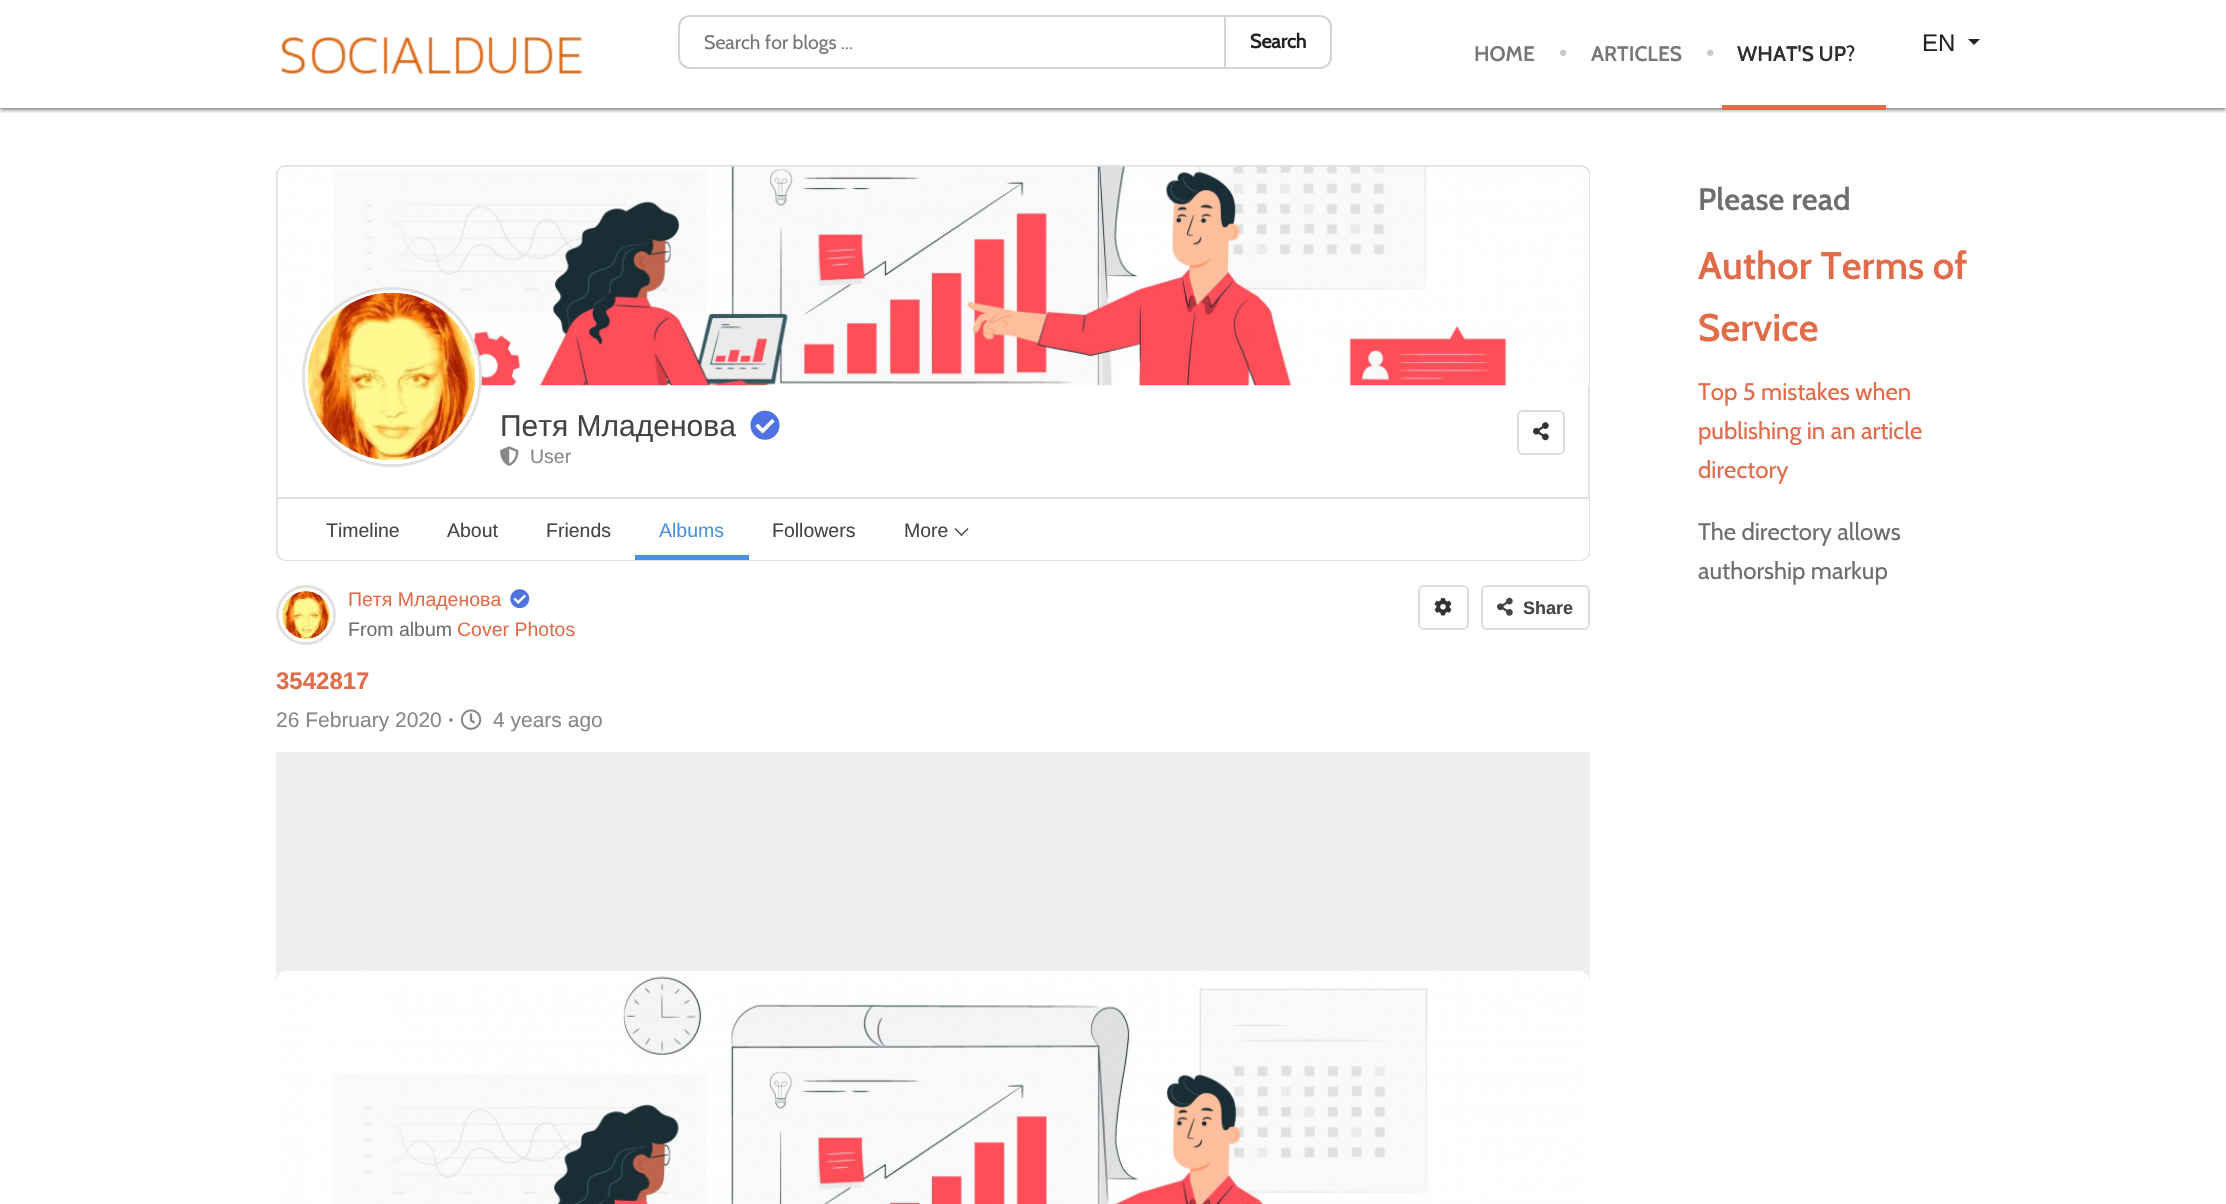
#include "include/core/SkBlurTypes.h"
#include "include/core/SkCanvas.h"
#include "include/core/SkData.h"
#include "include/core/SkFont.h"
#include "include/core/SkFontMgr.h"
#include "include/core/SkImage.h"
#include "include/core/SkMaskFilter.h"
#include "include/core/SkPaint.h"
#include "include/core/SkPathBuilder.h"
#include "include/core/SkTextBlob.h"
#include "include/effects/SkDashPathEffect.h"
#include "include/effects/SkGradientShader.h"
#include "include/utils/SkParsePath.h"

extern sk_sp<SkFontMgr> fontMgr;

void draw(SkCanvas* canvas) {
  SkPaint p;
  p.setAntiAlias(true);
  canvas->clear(SK_ColorWHITE);
  canvas->save();
  canvas->clipRect(SkRect::MakeLTRB(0, 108, 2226, 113));
  p.setColor(SkColorSetARGB(128, 0, 0, 0));
  p.setMaskFilter(SkMaskFilter::MakeBlur(kNormal_SkBlurStyle, 2));
  canvas->drawRect(SkRect::MakeLTRB(0, 2, 2226, 110), p);
  p.setMaskFilter(nullptr);
  canvas->restore();
  canvas->drawImageRect(SkImages::DeferredFromEncodedData(SkData::MakeFromFileName("images/1.png")), SkRect::MakeLTRB(280, 37, 583, 74), SkSamplingOptions());
  p.setStyle(SkPaint::kStroke_Style);
  p.setStrokeWidth(2);
  p.setColor(SkColorSetRGB(212, 212, 212));
  canvas->drawPath(SkPathBuilder().moveTo(690, 16).lineTo(1226, 16).lineTo(1226, 68).lineTo(690, 68).cubicTo(684, 68, 679, 63, 679, 57).lineTo(679, 27).cubicTo(679, 21, 684, 16, 690, 16).close().detach(), p);
  p.setStyle(SkPaint::kFill_Style);
  p.setColor(SK_ColorWHITE);
  canvas->drawPath(SkPathBuilder().moveTo(1225, 16).lineTo(1320, 16).cubicTo(1326, 16, 1331, 21, 1331, 27).lineTo(1331, 57).cubicTo(1331, 63, 1326, 68, 1320, 68).lineTo(1225, 68).close().detach(), p);
  p.setStyle(SkPaint::kStroke_Style);
  p.setColor(SkColorSetRGB(212, 212, 212));
  canvas->drawPath(SkPathBuilder().moveTo(1225, 16).lineTo(1320, 16).cubicTo(1326, 16, 1331, 21, 1331, 27).lineTo(1331, 57).cubicTo(1331, 63, 1326, 68, 1320, 68).lineTo(1225, 68).close().detach(), p);
  canvas->drawImageRect(SkImages::DeferredFromEncodedData(SkData::MakeFromFileName("images/2.png")), SkRect::MakeLTRB(1560, 49, 1567, 56), SkSamplingOptions());
  canvas->drawImageRect(SkImages::DeferredFromEncodedData(SkData::MakeFromFileName("images/2.png")), SkRect::MakeLTRB(1707, 49, 1714, 56), SkSamplingOptions());
  p.setStyle(SkPaint::kFill_Style);
  p.setColor(SkColorSetRGB(224, 108, 74));
  canvas->drawRect(SkRect::MakeLTRB(1722, 105, 1886, 110), p);
  p.setColor(SkColorSetRGB(33, 37, 41));
  canvas->drawPath(SkPathBuilder().moveTo(1968, 39).lineTo(1980, 39).lineTo(1974, 45).close().detach(), p);
  p.setStyle(SkPaint::kStroke_Style);
  p.setColor(SkColorSetRGB(225, 225, 225));
  canvas->drawRoundRect(SkRect::MakeLTRB(277, 166, 1589, 560), 8, 8, p);
  p.setStyle(SkPaint::kFill_Style);
  p.setColor(SK_ColorWHITE);
  canvas->drawPath(SkPathBuilder().moveTo(287, 167).lineTo(1580, 167).cubicTo(1585, 167, 1589, 171, 1589, 176).lineTo(1589, 386).lineTo(278, 386).lineTo(278, 176).cubicTo(278, 171, 282, 167, 287, 167).close().detach(), p);
  canvas->drawImageRect(SkImages::DeferredFromEncodedData(SkData::MakeFromFileName("images/3.png")), SkRect::MakeLTRB(277, 166, 1587, 386), SkSamplingOptions());
  canvas->drawCircle(392, 377, 88.5f, p);
  p.setStyle(SkPaint::kStroke_Style);
  p.setStrokeWidth(3);
  p.setColor(SkColorSetRGB(225, 225, 225));
  canvas->drawCircle(392, 377, 88.5f, p);
  p.setColor(SK_ColorWHITE);
  canvas->drawCircle(392, 377, 85.5f, p);
  canvas->drawImageRect(SkImages::DeferredFromEncodedData(SkData::MakeFromFileName("images/4.png")), SkRect::MakeLTRB(307, 292, 476, 461), SkSamplingOptions());
  canvas->drawImageRect(SkImages::DeferredFromEncodedData(SkData::MakeFromFileName("images/5.png")), SkRect::MakeLTRB(750, 410, 780, 440), SkSamplingOptions());
  canvas->drawImageRect(SkImages::DeferredFromEncodedData(SkData::MakeFromFileName("images/6.png")), SkRect::MakeLTRB(500, 446, 519, 466), SkSamplingOptions());
  p.setStrokeWidth(2);
  p.setColor(SkColorSetRGB(221, 221, 221));
  canvas->drawRoundRect(SkRect::MakeLTRB(1518, 411, 1564, 454), 5, 5, p);
  canvas->drawImageRect(SkImages::DeferredFromEncodedData(SkData::MakeFromFileName("images/7.png")), SkRect::MakeLTRB(1533, 422, 1549, 441), SkSamplingOptions());
  p.setStyle(SkPaint::kFill_Style);
  p.setColor(SK_ColorWHITE);
  canvas->drawPath(SkPathBuilder().moveTo(278, 497).lineTo(1589, 497).lineTo(1589, 551).cubicTo(1589, 556, 1585, 560, 1580, 560).lineTo(287, 560).cubicTo(282, 560, 278, 556, 278, 551).close().detach(), p);
  p.setColor(SkColorSetRGB(225, 225, 225));
  canvas->drawRect(SkRect::MakeLTRB(278, 497, 1589, 499), p);
  p.setColor(SkColorSetRGB(74, 144, 226));
  canvas->drawRect(SkRect::MakeLTRB(635, 555, 749, 560), p);
  p.setColor(SkColorSetRGB(68, 68, 68));
  canvas->drawPath(SkPathBuilder().moveTo(968.5f, 529).lineTo(961.5f, 536).lineTo(960.5f, 535).lineTo(967.5f, 528).close().detach(), p);
  canvas->drawPath(SkPathBuilder().moveTo(962.5f, 535).lineTo(961.5f, 536).lineTo(954.5f, 529).lineTo(955.5f, 528).close().detach(), p);
  p.setStyle(SkPaint::kStroke_Style);
  p.setStrokeWidth(3);
  p.setColor(SkColorSetRGB(225, 225, 225));
  canvas->drawCircle(306, 615, 28.5f, p);
  p.setColor(SK_ColorWHITE);
  canvas->drawCircle(306, 615, 25.5f, p);
  canvas->drawImageRect(SkImages::DeferredFromEncodedData(SkData::MakeFromFileName("images/8.png")), SkRect::MakeLTRB(282, 591, 330, 639), SkSamplingOptions());
  canvas->drawImageRect(SkImages::DeferredFromEncodedData(SkData::MakeFromFileName("images/9.png")), SkRect::MakeLTRB(510, 589, 530, 609), SkSamplingOptions());
  p.setStrokeWidth(2);
  p.setColor(SkColorSetRGB(221, 221, 221));
  canvas->drawRoundRect(SkRect::MakeLTRB(1419, 586, 1468, 629), 5, 5, p);
  canvas->drawImageRect(SkImages::DeferredFromEncodedData(SkData::MakeFromFileName("images/10.png")), SkRect::MakeLTRB(1434, 598, 1452, 616), SkSamplingOptions());
  canvas->drawRoundRect(SkRect::MakeLTRB(1482, 586, 1589, 629), 5, 5, p);
  canvas->drawImageRect(SkImages::DeferredFromEncodedData(SkData::MakeFromFileName("images/11.png")), SkRect::MakeLTRB(1497, 597, 1513, 616), SkSamplingOptions());
  canvas->drawImageRect(SkImages::DeferredFromEncodedData(SkData::MakeFromFileName("images/12.png")), SkRect::MakeLTRB(460, 709, 482, 730), SkSamplingOptions());
  p.setStyle(SkPaint::kFill_Style);
  p.setColor(SkColorSetRGB(238, 238, 238));
  canvas->drawRect(SkRect::MakeLTRB(276, 752, 1590, 983), p);
  canvas->drawImageRect(SkImages::DeferredFromEncodedData(SkData::MakeFromFileName("images/13.png")), SkRect::MakeLTRB(276, 970, 1590, 1204), SkSamplingOptions());
  SkFont font1(fontMgr->matchFamilyStyle("Cabin", SkFontStyle::Normal()), 19.5f);
  font1.setSubpixel(true);
  p.setColor(SkColorSetRGB(119, 119, 119));
  canvas->drawString("Search for blogs ...", 704, 49, font1, p);
  SkFont font2(fontMgr->matchFamilyStyle("Cabin", SkFontStyle::Bold()), 19.5f);
  font2.setSubpixel(true);
  p.setColor(SkColorSetRGB(34, 34, 34));
  canvas->drawString("Search", 1250, 48, font2, p);
  SkFont font3(fontMgr->matchFamilyStyle("Cabin", SkFontStyle(600, SkFontStyle::kNormal_Width, SkFontStyle::kUpright_Slant)), 21);
  font3.setSubpixel(true);
  p.setColor(SkColorSetRGB(119, 119, 119));
  canvas->drawString("HOME", 1474, 61, font3, p);
  canvas->drawString("ARTICLES", 1591, 61, font3, p);
  p.setColor(SkColorSetRGB(47, 47, 47));
  canvas->drawString("WHAT'S UP?", 1737, 61, font3, p);
  SkFont font4(fontMgr->matchFamilyStyle("Liberation Sans", SkFontStyle::Normal()), 24);
  font4.setSubpixel(true);
  p.setColor(SkColorSetRGB(33, 37, 41));
  canvas->drawString("EN", 1922, 51, font4, p);
  SkFont font5(fontMgr->matchFamilyStyle("Liberation Sans", SkFontStyle::Normal()), 30);
  font5.setSubpixel(true);
  p.setColor(SkColorSetRGB(68, 68, 68));
  canvas->drawString("Петя Младенова", 500, 436, font5, p);
  SkFont font6(fontMgr->matchFamilyStyle("Liberation Sans", SkFontStyle::Normal()), 19.5f);
  font6.setSubpixel(true);
  p.setColor(SkColorSetRGB(136, 136, 136));
  canvas->drawString("User", 530, 463, font6, p);
  p.setColor(SkColorSetRGB(68, 68, 68));
  canvas->drawString("Timeline", 326, 537, font6, p);
  canvas->drawString("About", 447, 537, font6, p);
  canvas->drawString("Friends", 546, 537, font6, p);
  p.setColor(SkColorSetRGB(74, 144, 226));
  canvas->drawString("Albums", 659, 537, font6, p);
  p.setColor(SkColorSetRGB(68, 68, 68));
  canvas->drawString("Followers", 772, 537, font6, p);
  canvas->drawString("More", 904, 537, font6, p);
  p.setColor(SkColorSetRGB(224, 108, 74));
  canvas->drawString("Петя Младенова", 348, 606, font6, p);
  SkFont font7(fontMgr->matchFamilyStyle("Liberation Sans", SkFontStyle::Bold()), 18);
  font7.setSubpixel(true);
  p.setColor(SkColorSetRGB(68, 68, 68));
  canvas->drawString("Share", 1523, 614, font7, p);
  p.setColor(SkColorSetRGB(110, 110, 110));
  canvas->drawString("From album", 348, 636, font6, p);
  p.setColor(SkColorSetRGB(224, 108, 74));
  canvas->drawString("Cover Photos", 457, 636, font6, p);
  SkFont font8(fontMgr->matchFamilyStyle("Liberation Sans", SkFontStyle::Bold()), 24);
  font8.setSubpixel(true);
  canvas->drawString("3542817", 276, 689, font8, p);
  SkFont font9(fontMgr->matchFamilyStyle("Liberation Sans", SkFontStyle::Normal()), 21);
  font9.setSubpixel(true);
  p.setColor(SkColorSetRGB(136, 136, 136));
  canvas->drawString("26 February 2020", 276, 727, font9, p);
  SkFont font10(fontMgr->matchFamilyStyle("Liberation Sans", SkFontStyle::Bold()), 21);
  font10.setSubpixel(true);
  canvas->drawString("·", 448, 727, font10, p);
  canvas->drawString("4 years ago", 493, 727, font9, p);
  SkFont font11(fontMgr->matchFamilyStyle("Cabin", SkFontStyle(600, SkFontStyle::kNormal_Width, SkFontStyle::kUpright_Slant)), 31);
  font11.setSubpixel(true);
  p.setColor(SkColorSetRGB(110, 110, 110));
  canvas->drawString("Please read", 1698, 210, font11, p);
  SkFont font12(fontMgr->matchFamilyStyle("Cabin", SkFontStyle(600, SkFontStyle::kNormal_Width, SkFontStyle::kUpright_Slant)), 38.5f);
  font12.setSubpixel(true);
  p.setColor(SkColorSetRGB(224, 108, 74));
  canvas->drawString("Author Terms of", 1698, 279, font12, p);
  canvas->drawString("Service", 1698, 341, font12, p);
  SkFont font13(fontMgr->matchFamilyStyle("Cabin", SkFontStyle::Normal()), 24);
  font13.setSubpixel(true);
  canvas->drawString("Top 5 mistakes when", 1698, 400, font13, p);
  canvas->drawString("publishing in an article", 1698, 439, font13, p);
  canvas->drawString("directory", 1698, 478, font13, p);
  p.setColor(SkColorSetRGB(110, 110, 110));
  canvas->drawString("The directory allows", 1698, 540, font13, p);
  canvas->drawString("authorship markup", 1698, 579, font13, p);
}
